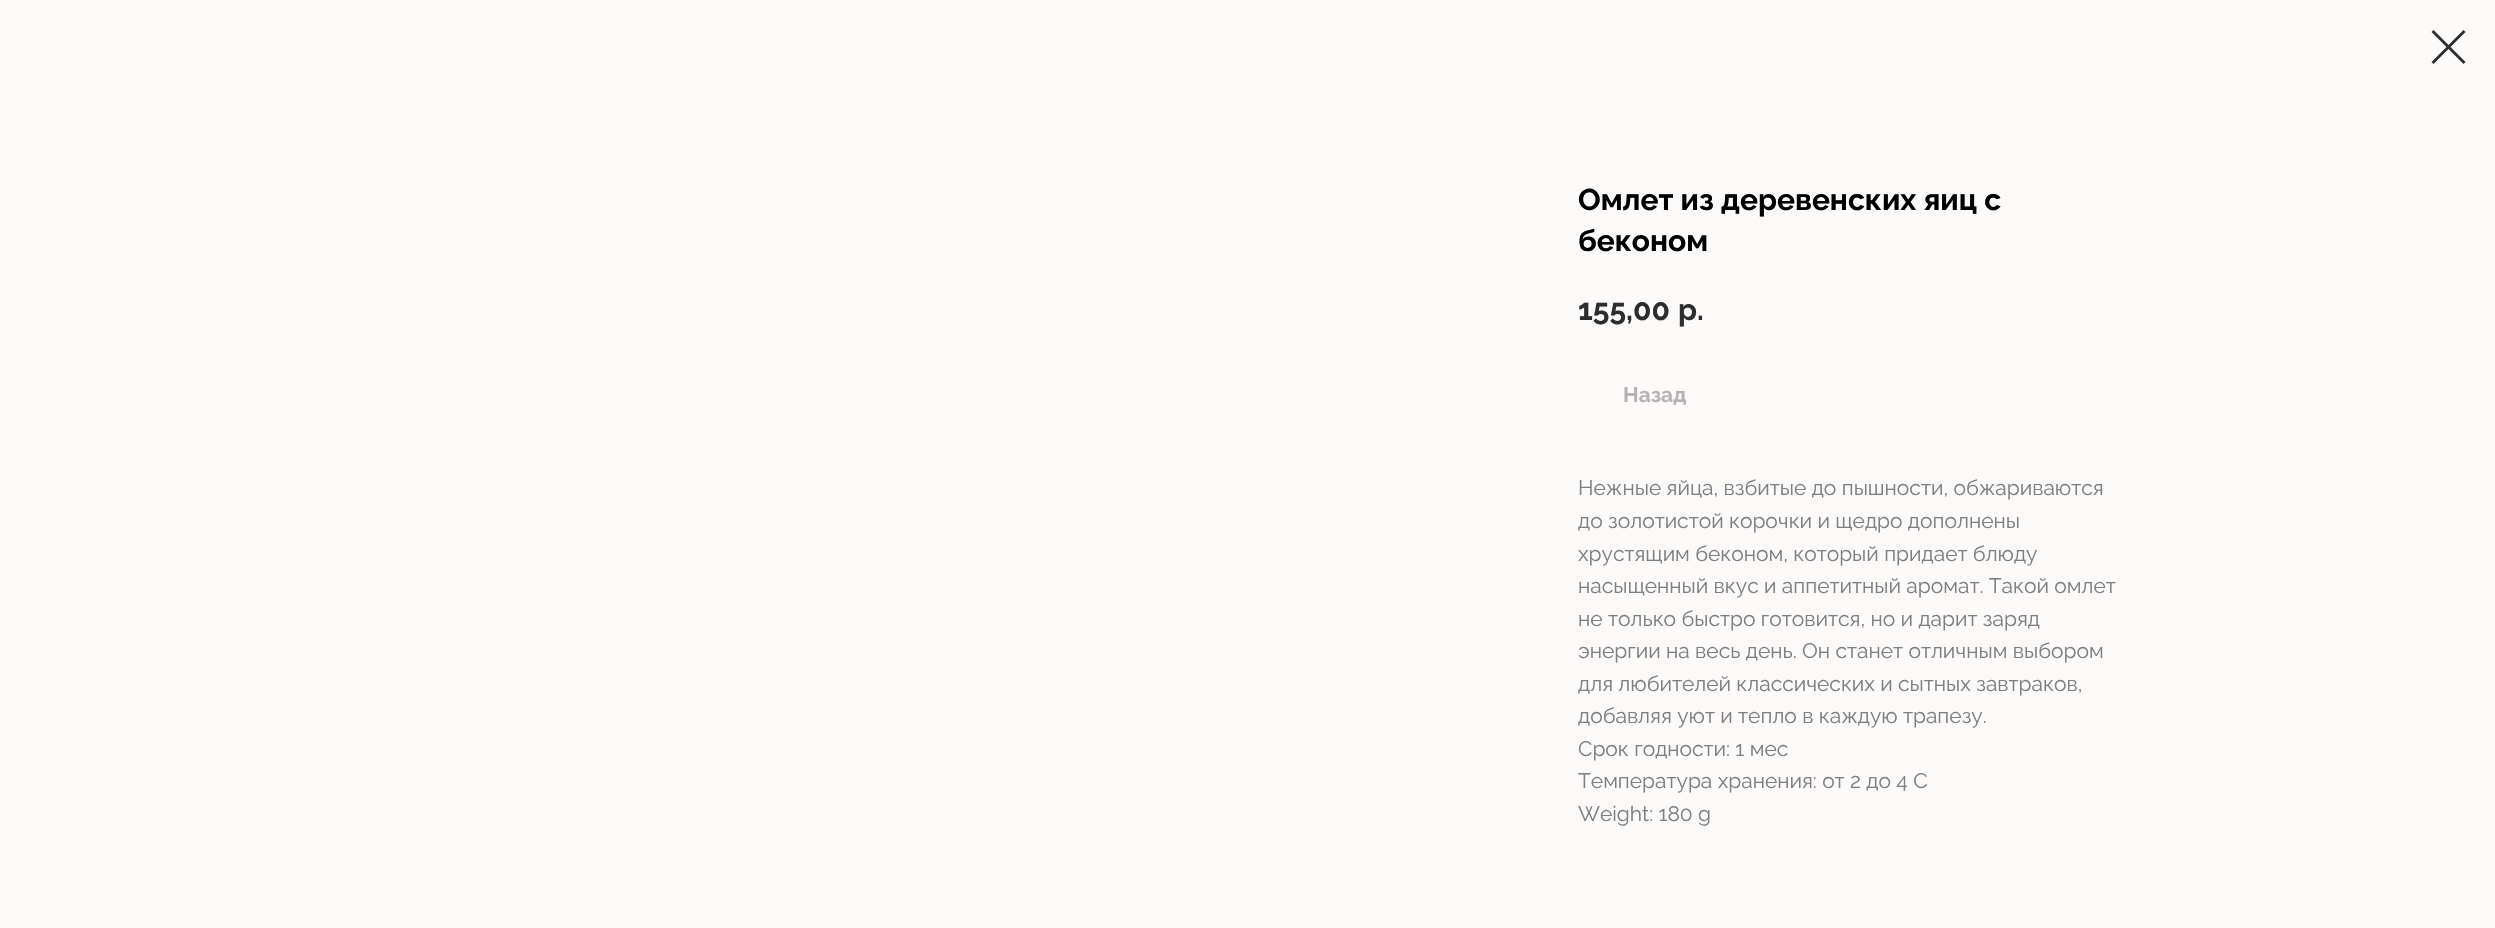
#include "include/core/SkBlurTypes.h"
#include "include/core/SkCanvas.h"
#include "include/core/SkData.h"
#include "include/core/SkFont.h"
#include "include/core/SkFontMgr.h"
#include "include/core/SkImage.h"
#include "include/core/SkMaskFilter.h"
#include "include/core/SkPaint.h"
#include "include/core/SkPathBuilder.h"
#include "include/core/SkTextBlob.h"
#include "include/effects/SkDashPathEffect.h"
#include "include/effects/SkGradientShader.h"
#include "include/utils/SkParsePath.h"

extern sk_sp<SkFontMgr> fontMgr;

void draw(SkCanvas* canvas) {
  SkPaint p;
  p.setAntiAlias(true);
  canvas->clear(SkColorSetRGB(252, 249, 249));
  p.setColor(SkColorSetRGB(45, 45, 45));
  canvas->drawPath(SkPathBuilder(SkPathFillType::kEvenOdd).moveTo(2431.5f, 32).lineTo(2433.5f, 30).lineTo(2465.5f, 62).lineTo(2463.5f, 64).close().detach(), p);
  canvas->drawPath(SkPathBuilder(SkPathFillType::kEvenOdd).moveTo(2463.5f, 30).lineTo(2465.5f, 32).lineTo(2433.5f, 64).lineTo(2431.5f, 62).close().detach(), p);
  SkFont font1(fontMgr->matchFamilyStyle("Raleway", SkFontStyle::Bold()), 30);
  font1.setSubpixel(true);
  p.setColor(SK_ColorBLACK);
  canvas->drawString("Омлет из деревенских яиц с", 1578, 210, font1, p);
  canvas->drawString("беконом", 1578, 251, font1, p);
  p.setColor(SkColorSetRGB(45, 45, 45));
  canvas->drawString("155,00", 1578, 320, font1, p);
  canvas->drawString("р.", 1678, 320, font1, p);
  SkFont font2(fontMgr->matchFamilyStyle("Raleway", SkFontStyle::Bold()), 21);
  font2.setSubpixel(true);
  p.setColor(SkColorSetRGB(180, 178, 178));
  canvas->drawString("Назад", 1623, 402, font2, p);
  SkFont font3(fontMgr->matchFamilyStyle("Raleway", SkFontStyle::Normal()), 21);
  font3.setSubpixel(true);
  p.setColor(SkColorSetRGB(126, 126, 126));
  canvas->drawString("Нежные яйца, взбитые до пышности, обжариваются", 1578, 495, font3, p);
  canvas->drawString("до золотистой корочки и щедро дополнены", 1578, 528, font3, p);
  canvas->drawString("хрустящим беконом, который придает блюду", 1578, 561, font3, p);
  canvas->drawString("насыщенный вкус и аппетитный аромат. Такой омлет", 1578, 593, font3, p);
  canvas->drawString("не только быстро готовится, но и дарит заряд", 1578, 626, font3, p);
  canvas->drawString("энергии на весь день. Он станет отличным выбором", 1578, 658, font3, p);
  canvas->drawString("для любителей классических и сытных завтраков,", 1578, 691, font3, p);
  canvas->drawString("добавляя уют и тепло в каждую трапезу.", 1578, 723, font3, p);
  canvas->drawString("Срок годности: 1 мес", 1578, 756, font3, p);
  canvas->drawString("Температура хранения: от 2 до 4 С", 1578, 788, font3, p);
  canvas->drawString("Weight: 180 g", 1578, 821, font3, p);
}
